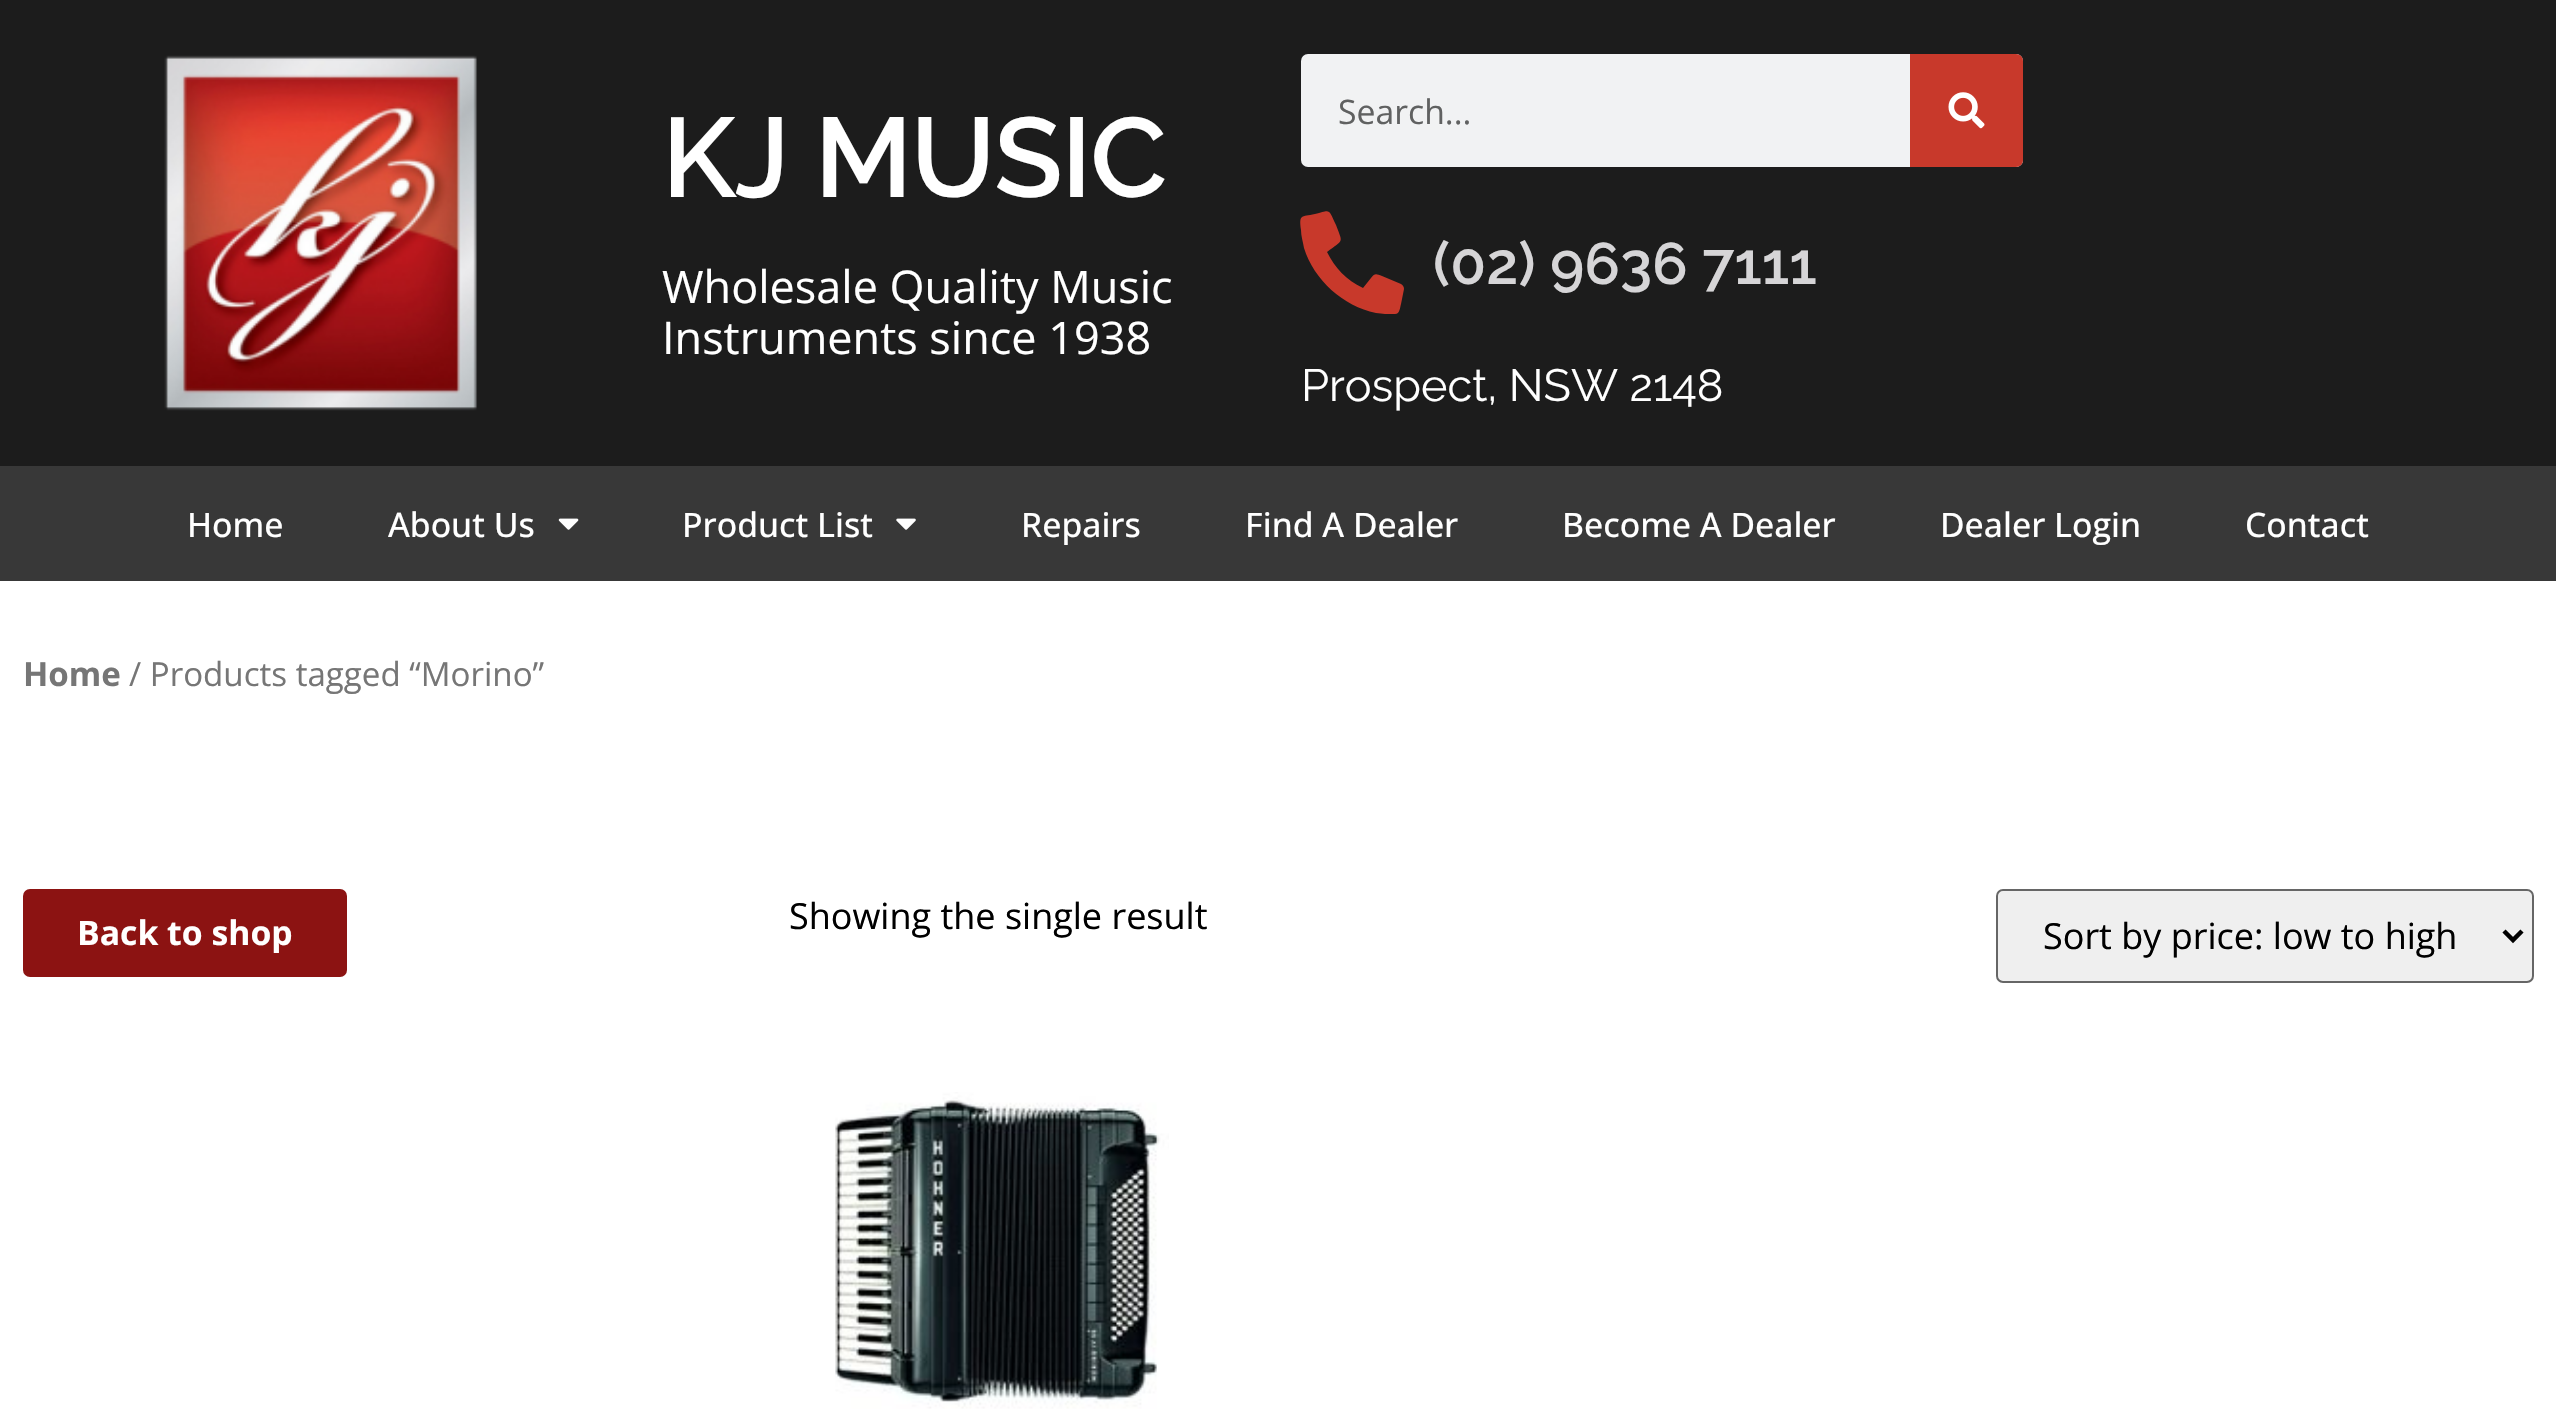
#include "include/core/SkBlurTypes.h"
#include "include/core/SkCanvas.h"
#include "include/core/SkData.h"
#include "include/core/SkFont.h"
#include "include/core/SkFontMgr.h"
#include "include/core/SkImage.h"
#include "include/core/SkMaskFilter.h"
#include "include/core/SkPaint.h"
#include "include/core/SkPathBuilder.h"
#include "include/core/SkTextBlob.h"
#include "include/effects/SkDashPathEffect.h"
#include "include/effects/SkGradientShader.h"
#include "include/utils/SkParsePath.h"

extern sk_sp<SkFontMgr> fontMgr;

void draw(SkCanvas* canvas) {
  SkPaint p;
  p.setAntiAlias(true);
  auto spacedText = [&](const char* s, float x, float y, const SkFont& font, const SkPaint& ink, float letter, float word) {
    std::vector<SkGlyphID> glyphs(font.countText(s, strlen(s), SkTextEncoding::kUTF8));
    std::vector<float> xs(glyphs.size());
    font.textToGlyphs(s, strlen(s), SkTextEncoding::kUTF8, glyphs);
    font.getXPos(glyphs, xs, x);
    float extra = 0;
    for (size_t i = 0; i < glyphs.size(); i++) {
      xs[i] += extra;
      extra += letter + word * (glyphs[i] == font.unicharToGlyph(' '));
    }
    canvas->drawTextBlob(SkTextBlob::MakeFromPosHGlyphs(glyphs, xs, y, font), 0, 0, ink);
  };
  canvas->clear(SK_ColorWHITE);
  p.setColor(SkColorSetRGB(28, 28, 28));
  canvas->drawRect(SkRect::MakeLTRB(0, 0, 2556, 466), p);
  canvas->drawImageRect(SkImages::DeferredFromEncodedData(SkData::MakeFromFileName("images/1.png")), SkRect::MakeLTRB(164, 55, 477, 411), SkSamplingOptions());
  p.setColor(SkColorSetRGB(241, 242, 243));
  canvas->drawRoundRect(SkRect::MakeLTRB(1301, 54, 2023, 167), 7, 7, p);
  p.setColor(SkColorSetRGB(200, 57, 43));
  canvas->drawPath(SkPathBuilder().moveTo(1910, 54).lineTo(2016, 54).cubicTo(2020, 54, 2023, 57, 2023, 61).lineTo(2023, 160).cubicTo(2023, 164, 2020, 167, 2016, 167).lineTo(1910, 167).close().detach(), p);
  canvas->drawImageRect(SkImages::DeferredFromEncodedData(SkData::MakeFromFileName("images/2.png")), SkRect::MakeLTRB(1948, 92, 1985, 129), SkSamplingOptions());
  canvas->drawPath(SkPathBuilder().moveTo(1401, 284).cubicTo(1403, 285, 1404, 287, 1404, 289).lineTo(1401, 304).cubicTo(1400, 307, 1400, 315, 1394, 314).cubicTo(1387, 314, 1383, 314, 1376, 313).cubicTo(1343, 306, 1314, 280, 1304, 248).cubicTo(1303, 242, 1301, 236, 1301, 230).cubicTo(1299, 214, 1301, 217, 1315, 214).cubicTo(1331, 210, 1328, 208, 1336, 225).cubicTo(1343, 244, 1344, 239, 1327, 252).cubicTo(1335, 268, 1346, 280, 1363, 288).lineTo(1371, 278).cubicTo(1375, 273, 1376, 274, 1382, 276).close().detach(), p);
  p.setColor(SkColorSetRGB(56, 56, 56));
  canvas->drawRect(SkRect::MakeLTRB(0, 466, 2556, 581), p);
  canvas->drawImageRect(SkImages::DeferredFromEncodedData(SkData::MakeFromFileName("images/3.png")), SkRect::MakeLTRB(558, 518, 579, 530), SkSamplingOptions());
  canvas->drawImageRect(SkImages::DeferredFromEncodedData(SkData::MakeFromFileName("images/4.png")), SkRect::MakeLTRB(896, 518, 916, 530), SkSamplingOptions());
  p.setColor(SkColorSetRGB(140, 19, 18));
  canvas->drawRoundRect(SkRect::MakeLTRB(23, 889, 347, 977), 7, 7, p);
  p.setColor(SkColorSetRGB(239, 239, 239));
  canvas->drawRoundRect(SkRect::MakeLTRB(1997, 890, 2533, 982), 6, 6, p);
  p.setStyle(SkPaint::kStroke_Style);
  p.setStrokeWidth(2);
  p.setColor(SkColorSetRGB(102, 102, 102));
  canvas->drawRoundRect(SkRect::MakeLTRB(1997, 890, 2533, 982), 6, 6, p);
  p.setStrokeWidth(4.5f);
  p.setColor(SK_ColorBLACK);
  canvas->drawPath(SkPathBuilder().moveTo(2504, 931).lineTo(2513, 940).lineTo(2522, 931).detach(), p);
  canvas->drawImageRect(SkImages::DeferredFromEncodedData(SkData::MakeFromFileName("images/5.png")), SkRect::MakeLTRB(835, 1092, 1169, 1409), SkSamplingOptions());
  SkFont font1(fontMgr->matchFamilyStyle("Raleway", SkFontStyle(600, SkFontStyle::kNormal_Width, SkFontStyle::kUpright_Slant)), 112.5f);
  font1.setSubpixel(true);
  p.setStyle(SkPaint::kFill_Style);
  p.setColor(SK_ColorWHITE);
  spacedText("KJ MUSIC", 662, 197, font1, p, -1.5f, 0);
  SkFont font2(fontMgr->matchFamilyStyle("Open Sans", SkFontStyle::Normal()), 45);
  font2.setSubpixel(true);
  canvas->drawString("Wholesale Quality Music", 662, 303, font2, p);
  canvas->drawString("Instruments since 1938", 662, 354, font2, p);
  SkFont font3(fontMgr->matchFamilyStyle("Open Sans", SkFontStyle::Normal()), 33.75f);
  font3.setSubpixel(true);
  p.setColor(SkColorSetRGB(96, 97, 97));
  canvas->drawString("Search...", 1338, 124, font3, p);
  SkFont font4(fontMgr->matchFamilyStyle("Raleway", SkFontStyle(600, SkFontStyle::kNormal_Width, SkFontStyle::kUpright_Slant)), 58.5f);
  font4.setSubpixel(true);
  p.setColor(SkColorSetRGB(214, 213, 215));
  canvas->drawString("(02) 9636 7111", 1433, 284, font4, p);
  SkFont font5(fontMgr->matchFamilyStyle("Raleway", SkFontStyle::Normal()), 45);
  font5.setSubpixel(true);
  p.setColor(SK_ColorWHITE);
  canvas->drawString("Prospect, NSW 2148", 1301, 401, font5, p);
  SkFont font6(fontMgr->matchFamilyStyle("Open Sans", SkFontStyle(500, SkFontStyle::kNormal_Width, SkFontStyle::kUpright_Slant)), 33.75f);
  font6.setSubpixel(true);
  canvas->drawString("Home", 187, 537, font6, p);
  canvas->drawString("About Us", 388, 537, font6, p);
  canvas->drawString("Product List", 682, 537, font6, p);
  canvas->drawString("Repairs", 1021, 537, font6, p);
  canvas->drawString("Find A Dealer", 1245, 537, font6, p);
  canvas->drawString("Become A Dealer", 1562, 537, font6, p);
  canvas->drawString("Dealer Login", 1940, 537, font6, p);
  canvas->drawString("Contact", 2245, 537, font6, p);
  SkFont font7(fontMgr->matchFamilyStyle("Open Sans", SkFontStyle::Bold()), 33.1f);
  font7.setSubpixel(true);
  p.setColor(SkColorSetRGB(118, 118, 118));
  canvas->drawString("Home", 23, 686, font7, p);
  SkFont font8(fontMgr->matchFamilyStyle("Open Sans", SkFontStyle::Normal()), 33.1f);
  font8.setSubpixel(true);
  canvas->drawString("/ Products tagged “Morino”", 129, 686, font8, p);
  SkFont font9(fontMgr->matchFamilyStyle("Open Sans", SkFontStyle::Bold()), 33.75f);
  font9.setSubpixel(true);
  p.setColor(SK_ColorWHITE);
  canvas->drawString("Back to shop", 77, 945, font9, p);
  SkFont font10(fontMgr->matchFamilyStyle("Open Sans", SkFontStyle::Normal()), 36);
  font10.setSubpixel(true);
  p.setColor(SK_ColorBLACK);
  canvas->drawString("Showing the single result", 789, 929, font10, p);
  canvas->drawString("Sort by price: low to high", 2043, 949, font10, p);
}
